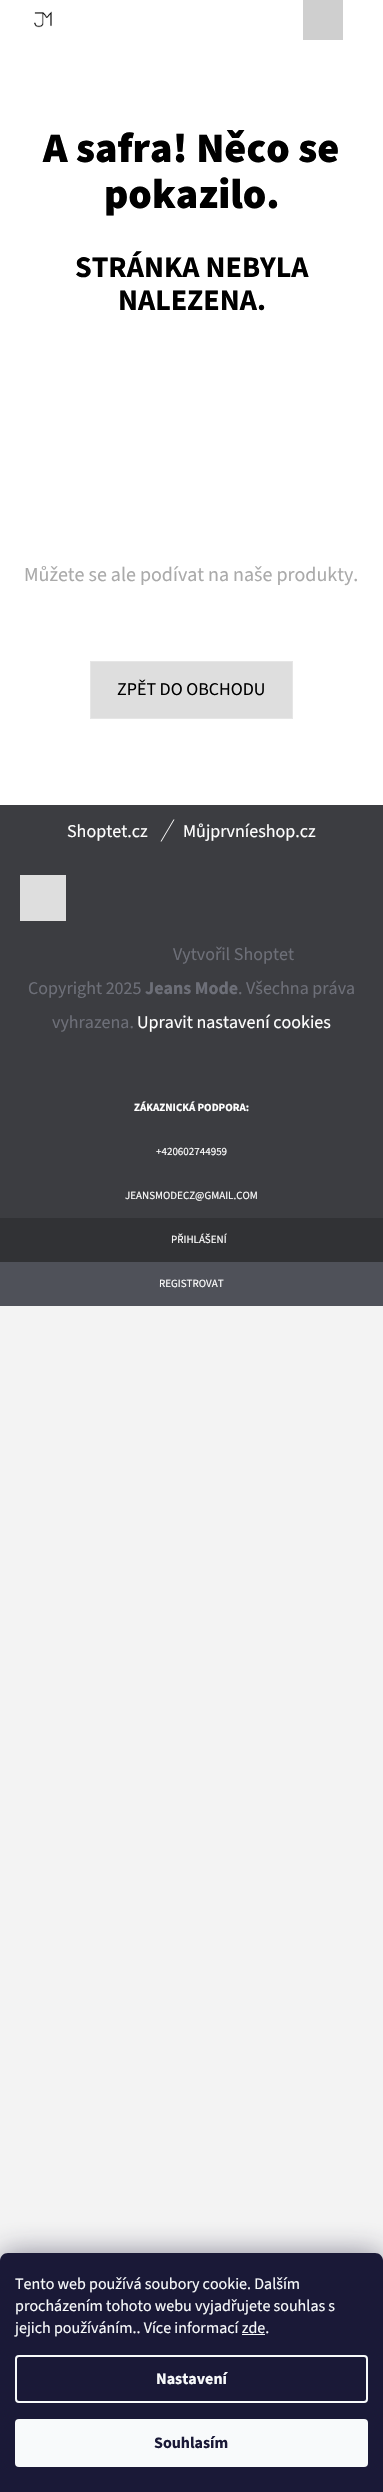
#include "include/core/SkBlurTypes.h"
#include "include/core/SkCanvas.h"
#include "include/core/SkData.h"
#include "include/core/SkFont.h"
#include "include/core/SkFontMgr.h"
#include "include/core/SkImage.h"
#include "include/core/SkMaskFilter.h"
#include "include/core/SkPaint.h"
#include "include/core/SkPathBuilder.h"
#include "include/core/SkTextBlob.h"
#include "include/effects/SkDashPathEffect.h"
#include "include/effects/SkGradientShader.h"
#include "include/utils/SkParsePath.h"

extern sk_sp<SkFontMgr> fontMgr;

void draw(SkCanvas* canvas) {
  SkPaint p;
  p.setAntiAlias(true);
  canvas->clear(SkColorSetRGB(243, 243, 243));
  p.setColor(SK_ColorWHITE);
  canvas->drawRect(SkRect::MakeLTRB(0, 0, 383, 805), p);
  canvas->drawImageRect(SkImages::DeferredFromEncodedData(SkData::MakeFromFileName("images/1.png")), SkRect::MakeLTRB(34, 11, 52, 28), SkSamplingOptions());
  p.setColor(SkColorSetRGB(207, 207, 207));
  canvas->drawRect(SkRect::MakeLTRB(303, 0, 343, 40), p);
  p.setColor(SkColorSetRGB(222, 222, 222));
  canvas->drawRect(SkRect::MakeLTRB(90.5f, 661.5f, 292.5f, 718.5f), p);
  p.setStyle(SkPaint::kStroke_Style);
  p.setStrokeWidth(1);
  p.setColor(SkColorSetRGB(230, 230, 230));
  canvas->drawRect(SkRect::MakeLTRB(90.5f, 661.5f, 292.5f, 718.5f), p);
  p.setStyle(SkPaint::kFill_Style);
  p.setColor(SkColorSetRGB(60, 61, 65));
  canvas->drawRect(SkRect::MakeLTRB(0, 805, 383, 1218), p);
  p.setColor(SK_ColorWHITE);
  canvas->drawPath(SkPathBuilder().moveTo(173.5f, 819.5f).lineTo(174.5f, 819.5f).lineTo(161.5f, 841.5f).lineTo(160.5f, 841.5f).close().detach(), p);
  p.setColor(SkColorSetRGB(222, 222, 222));
  canvas->drawRect(SkRect::MakeLTRB(20, 875, 66, 921), p);
  p.setColor(SkColorSetRGB(49, 50, 53));
  canvas->drawRect(SkRect::MakeLTRB(0, 1218, 383, 1262), p);
  p.setColor(SkColorSetRGB(79, 81, 89));
  canvas->drawRect(SkRect::MakeLTRB(0, 1262, 383, 1306), p);
  p.setColor(SkColorSetARGB(128, 27, 25, 57));
  p.setMaskFilter(SkMaskFilter::MakeBlur(kNormal_SkBlurStyle, 15));
  canvas->drawRoundRect(SkRect::MakeLTRB(0, 2253, 383, 2492), 8, 8, p);
  p.setMaskFilter(nullptr);
  p.setColor(SkColorSetRGB(26, 25, 55));
  canvas->drawPath(SkPathBuilder().moveTo(8, 2253).lineTo(375, 2253).cubicTo(379.5f, 2253, 383, 2256.5f, 383, 2261).lineTo(383, 2492).lineTo(0, 2492).lineTo(0, 2261).cubicTo(0, 2256.5f, 3.5f, 2253, 8, 2253).close().detach(), p);
  p.setColor(SkColorSetRGB(248, 250, 251));
  canvas->drawRect(SkRect::MakeLTRB(242, 2334, 265, 2335), p);
  p.setStyle(SkPaint::kStroke_Style);
  p.setStrokeWidth(2);
  canvas->drawRoundRect(SkRect::MakeLTRB(16, 2356, 367, 2402), 3, 3, p);
  p.setStyle(SkPaint::kFill_Style);
  canvas->drawRoundRect(SkRect::MakeLTRB(15, 2419, 368, 2467), 4, 4, p);
  SkFont font1(fontMgr->matchFamilyStyle("Source Sans 3", SkFontStyle(900, SkFontStyle::kNormal_Width, SkFontStyle::kUpright_Slant)), 42);
  font1.setSubpixel(true);
  p.setColor(SK_ColorBLACK);
  canvas->drawString("A safra! Něco se", 43, 162, font1, p);
  canvas->drawString("pokazilo.", 104, 208, font1, p);
  SkFont font2(fontMgr->matchFamilyStyle("Source Sans 3", SkFontStyle::Bold()), 30);
  font2.setSubpixel(true);
  canvas->drawString("STRÁNKA NEBYLA", 75, 277, font2, p);
  canvas->drawString("NALEZENA.", 118, 310, font2, p);
  SkFont font3(fontMgr->matchFamilyStyle("Source Sans 3", SkFontStyle::Normal()), 20);
  font3.setSubpixel(true);
  p.setColor(SkColorSetRGB(170, 170, 170));
  canvas->drawString("Můžete se ale podívat na naše produkty.", 24, 581, font3, p);
  SkFont font4(fontMgr->matchFamilyStyle("Source Sans 3", SkFontStyle::Normal()), 18);
  font4.setSubpixel(true);
  p.setColor(SK_ColorBLACK);
  canvas->drawString("ZPĚT DO OBCHODU", 117, 695, font4, p);
  p.setColor(SK_ColorWHITE);
  canvas->drawString("Shoptet.cz", 67, 837, font4, p);
  canvas->drawString("Můjprvníeshop.cz", 183, 837, font4, p);
  p.setColor(SkColorSetRGB(109, 111, 120));
  canvas->drawString("Vytvořil Shoptet", 173, 960, font4, p);
  canvas->drawString("Copyright 2025", 28, 994, font4, p);
  SkFont font5(fontMgr->matchFamilyStyle("Source Sans 3", SkFontStyle::Bold()), 18);
  font5.setSubpixel(true);
  canvas->drawString("Jeans Mode", 145, 994, font5, p);
  canvas->drawString(". Všechna práva", 238, 994, font4, p);
  canvas->drawString("vyhrazena.", 52, 1028, font4, p);
  p.setColor(SK_ColorWHITE);
  canvas->drawString("Upravit nastavení cookies", 137, 1028, font4, p);
  SkFont font6(fontMgr->matchFamilyStyle("Source Sans 3", SkFontStyle::Bold()), 11);
  font6.setSubpixel(true);
  canvas->drawString("ZÁKAZNICKÁ PODPORA:", 134, 1111, font6, p);
  SkFont font7(fontMgr->matchFamilyStyle("Source Sans 3", SkFontStyle::Normal()), 11);
  font7.setSubpixel(true);
  canvas->drawString("+420602744959", 156, 1155, font7, p);
  canvas->drawString("JEANSMODECZ@GMAIL.COM", 125, 1199, font7, p);
  canvas->drawString("PŘIHLÁŠENÍ", 171, 1243, font7, p);
  canvas->drawString("REGISTROVAT", 159, 1287, font7, p);
  SkFont font8(fontMgr->matchFamilyStyle("Source Sans 3", SkFontStyle::Normal()), 16);
  font8.setSubpixel(true);
  p.setColor(SkColorSetRGB(248, 250, 251));
  canvas->drawString("Tento web používá soubory cookie. Dalším", 15, 2289, font8, p);
  canvas->drawString("procházením tohoto webu vyjadřujete souhlas s", 15, 2311, font8, p);
  canvas->drawString("jejich používáním.. Více informací zde.", 15, 2333, font8, p);
  SkFont font9(fontMgr->matchFamilyStyle("Source Sans 3", SkFontStyle::Bold()), 16);
  font9.setSubpixel(true);
  canvas->drawString("Nastavení", 156, 2384, font9, p);
  p.setColor(SkColorSetRGB(26, 25, 55));
  canvas->drawString("Souhlasím", 154, 2448, font9, p);
}
